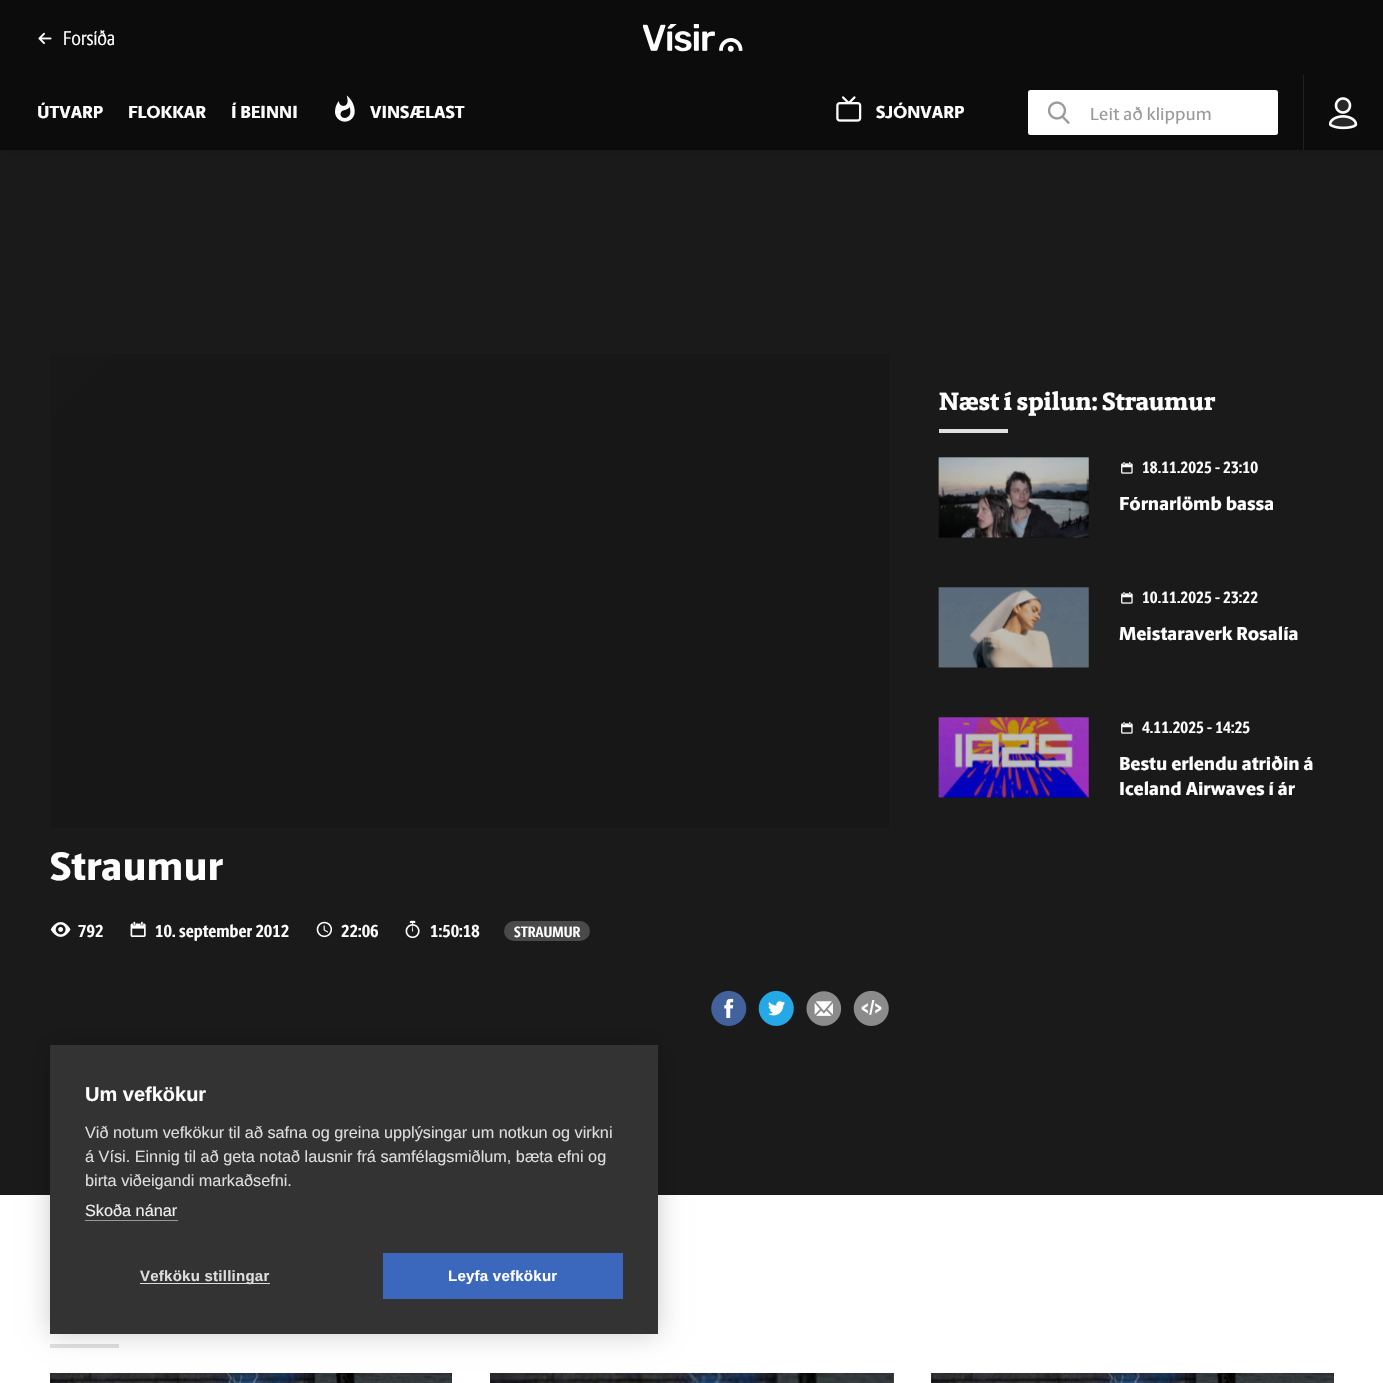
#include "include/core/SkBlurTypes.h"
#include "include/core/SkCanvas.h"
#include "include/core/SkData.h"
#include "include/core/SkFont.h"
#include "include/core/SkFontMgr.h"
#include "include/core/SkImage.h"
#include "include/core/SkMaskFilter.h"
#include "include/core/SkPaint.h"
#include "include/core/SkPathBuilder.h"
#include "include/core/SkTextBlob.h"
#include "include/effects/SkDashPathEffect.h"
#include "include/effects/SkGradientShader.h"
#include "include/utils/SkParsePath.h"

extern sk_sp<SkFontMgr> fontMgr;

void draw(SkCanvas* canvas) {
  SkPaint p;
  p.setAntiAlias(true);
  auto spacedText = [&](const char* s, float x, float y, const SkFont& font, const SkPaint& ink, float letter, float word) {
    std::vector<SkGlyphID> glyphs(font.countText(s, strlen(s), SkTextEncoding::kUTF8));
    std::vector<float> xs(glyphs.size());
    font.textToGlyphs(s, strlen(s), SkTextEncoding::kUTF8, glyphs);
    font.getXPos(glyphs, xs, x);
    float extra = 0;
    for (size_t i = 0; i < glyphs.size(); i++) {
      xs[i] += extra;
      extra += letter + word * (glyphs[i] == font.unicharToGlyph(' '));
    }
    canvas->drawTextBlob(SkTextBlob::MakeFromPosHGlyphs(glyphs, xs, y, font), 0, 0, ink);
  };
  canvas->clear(SK_ColorWHITE);
  p.setColor(SkColorSetRGB(26, 26, 26));
  canvas->drawRect(SkRect::MakeLTRB(0, 150, 1383, 1195), p);
  p.setColor(SkColorSetARGB(51, 0, 0, 0));
  p.setMaskFilter(SkMaskFilter::MakeBlur(kNormal_SkBlurStyle, 3));
  canvas->drawRect(SkRect::MakeLTRB(0, 75, 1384, 150), p);
  p.setMaskFilter(nullptr);
  p.setColor(SkColorSetRGB(12, 12, 12));
  canvas->drawRect(SkRect::MakeLTRB(0, 0, 1383, 150), p);
  canvas->drawImageRect(SkImages::DeferredFromEncodedData(SkData::MakeFromFileName("images/1.png")), SkRect::MakeLTRB(38, 32, 52, 44), SkSamplingOptions());
  canvas->drawImageRect(SkImages::DeferredFromEncodedData(SkData::MakeFromFileName("images/2.png")), SkRect::MakeLTRB(643, 24, 743, 52), SkSamplingOptions());
  canvas->drawImageRect(SkImages::DeferredFromEncodedData(SkData::MakeFromFileName("images/3.png")), SkRect::MakeLTRB(335, 95, 355, 122), SkSamplingOptions());
  canvas->drawImageRect(SkImages::DeferredFromEncodedData(SkData::MakeFromFileName("images/4.png")), SkRect::MakeLTRB(836, 96, 862, 122), SkSamplingOptions());
  p.setColor(SK_ColorWHITE);
  canvas->drawRoundRect(SkRect::MakeLTRB(1028, 90, 1278, 135), 2.5f, 2.5f, p);
  canvas->drawImageRect(SkImages::DeferredFromEncodedData(SkData::MakeFromFileName("images/5.png")), SkRect::MakeLTRB(1047, 101, 1070, 124), SkSamplingOptions());
  p.setColor(SkColorSetRGB(33, 33, 33));
  canvas->drawRect(SkRect::MakeLTRB(1303, 75, 1304, 150), p);
  canvas->drawImageRect(SkImages::DeferredFromEncodedData(SkData::MakeFromFileName("images/6.png")), SkRect::MakeLTRB(1329, 97, 1358, 130), SkSamplingOptions());
  p.setColor(SkColorSetRGB(20, 20, 20));
  canvas->drawRect(SkRect::MakeLTRB(939, 718, 1089, 798), p);
  canvas->drawRect(SkRect::MakeLTRB(939, 588, 1089, 668), p);
  canvas->drawRect(SkRect::MakeLTRB(939, 458, 1089, 538), p);
  p.setColor(SkColorSetRGB(224, 224, 224));
  canvas->drawRect(SkRect::MakeLTRB(939, 429, 1008, 433), p);
  canvas->drawImageRect(SkImages::DeferredFromEncodedData(SkData::MakeFromFileName("images/7.png")), SkRect::MakeLTRB(938, 457, 1089, 538), SkSamplingOptions());
  canvas->drawImageRect(SkImages::DeferredFromEncodedData(SkData::MakeFromFileName("images/8.png")), SkRect::MakeLTRB(1121, 462, 1133, 474), SkSamplingOptions());
  canvas->drawImageRect(SkImages::DeferredFromEncodedData(SkData::MakeFromFileName("images/9.png")), SkRect::MakeLTRB(938, 587, 1089, 668), SkSamplingOptions());
  canvas->drawImageRect(SkImages::DeferredFromEncodedData(SkData::MakeFromFileName("images/8.png")), SkRect::MakeLTRB(1121, 592, 1133, 604), SkSamplingOptions());
  canvas->drawImageRect(SkImages::DeferredFromEncodedData(SkData::MakeFromFileName("images/10.png")), SkRect::MakeLTRB(938, 717, 1089, 798), SkSamplingOptions());
  canvas->drawImageRect(SkImages::DeferredFromEncodedData(SkData::MakeFromFileName("images/8.png")), SkRect::MakeLTRB(1121, 722, 1133, 734), SkSamplingOptions());
  {
    const SkColor colors[] = {SkColorSetRGB(23, 23, 23), SkColorSetRGB(26, 26, 26), SkColorSetRGB(23, 23, 23)};
    const float stops[] = {0.4f, 0.5f, 0.6f};
    const SkPoint ends[] = {{378, 1338}, {-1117, -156}};
    p.setShader(SkGradientShader::MakeLinear(ends, colors, stops, 3, SkTileMode::kClamp));
    p.setAlpha(255);
  }
  canvas->drawRect(SkRect::MakeLTRB(50, 355, 889, 828), p);
  canvas->drawImageRect(SkImages::DeferredFromEncodedData(SkData::MakeFromFileName("images/11.png")), SkRect::MakeLTRB(50, 922, 71, 937), SkSamplingOptions());
  canvas->drawImageRect(SkImages::DeferredFromEncodedData(SkData::MakeFromFileName("images/12.png")), SkRect::MakeLTRB(130, 921, 146, 937), SkSamplingOptions());
  canvas->drawImageRect(SkImages::DeferredFromEncodedData(SkData::MakeFromFileName("images/13.png")), SkRect::MakeLTRB(316, 921, 333, 938), SkSamplingOptions());
  canvas->drawImageRect(SkImages::DeferredFromEncodedData(SkData::MakeFromFileName("images/14.png")), SkRect::MakeLTRB(405, 920, 420, 939), SkSamplingOptions());
  p.setShader(nullptr);
  p.setColor(SkColorSetRGB(74, 74, 74));
  canvas->drawRoundRect(SkRect::MakeLTRB(504, 921, 590, 941), 10, 10, p);
  p.setColor(SK_ColorWHITE);
  canvas->drawRoundRect(SkRect::MakeLTRB(715, 994, 740, 1023), 12.5f, 12.5f, p);
  canvas->drawImageRect(SkImages::DeferredFromEncodedData(SkData::MakeFromFileName("images/15.png")), SkRect::MakeLTRB(711, 990, 747, 1026), SkSamplingOptions());
  canvas->drawRoundRect(SkRect::MakeLTRB(763, 994, 788, 1023), 12.5f, 12.5f, p);
  canvas->drawImageRect(SkImages::DeferredFromEncodedData(SkData::MakeFromFileName("images/16.png")), SkRect::MakeLTRB(758, 990, 794, 1026), SkSamplingOptions());
  canvas->drawRoundRect(SkRect::MakeLTRB(810, 994, 835, 1023), 12.5f, 12.5f, p);
  canvas->drawImageRect(SkImages::DeferredFromEncodedData(SkData::MakeFromFileName("images/17.png")), SkRect::MakeLTRB(806, 991, 842, 1026), SkSamplingOptions());
  canvas->drawRoundRect(SkRect::MakeLTRB(858, 994, 883, 1023), 12.5f, 12.5f, p);
  canvas->drawImageRect(SkImages::DeferredFromEncodedData(SkData::MakeFromFileName("images/18.png")), SkRect::MakeLTRB(853, 990, 889, 1026), SkSamplingOptions());
  p.setColor(SkColorSetRGB(224, 224, 224));
  canvas->drawRect(SkRect::MakeLTRB(50, 1344, 119, 1348), p);
  canvas->drawImageRect(SkImages::DeferredFromEncodedData(SkData::MakeFromFileName("images/19.png")), SkRect::MakeLTRB(50, 1373, 452, 1383), SkSamplingOptions());
  canvas->drawImageRect(SkImages::DeferredFromEncodedData(SkData::MakeFromFileName("images/20.png")), SkRect::MakeLTRB(490, 1373, 894, 1383), SkSamplingOptions());
  canvas->drawImageRect(SkImages::DeferredFromEncodedData(SkData::MakeFromFileName("images/21.png")), SkRect::MakeLTRB(931, 1373, 1334, 1383), SkSamplingOptions());
  p.setColor(SkColorSetARGB(51, 0, 0, 0));
  p.setMaskFilter(SkMaskFilter::MakeBlur(kNormal_SkBlurStyle, 12.5f));
  canvas->drawRect(SkRect::MakeLTRB(50, 1045, 658, 1334), p);
  p.setMaskFilter(nullptr);
  p.setColor(SkColorSetRGB(51, 51, 51));
  canvas->drawRect(SkRect::MakeLTRB(50, 1045, 658, 1334), p);
  p.setColor(SkColorSetRGB(153, 153, 153));
  canvas->drawRect(SkRect::MakeLTRB(85, 1220, 178, 1221), p);
  p.setColor(SkColorSetRGB(221, 221, 221));
  canvas->drawRect(SkRect::MakeLTRB(140, 1283, 270, 1284), p);
  p.setColor(SkColorSetRGB(59, 104, 188));
  canvas->drawRect(SkRect::MakeLTRB(383, 1253, 623, 1299), p);
  SkFont font1(fontMgr->matchFamilyStyle("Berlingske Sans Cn", SkFontStyle::Normal()), 20);
  font1.setSubpixel(true);
  p.setColor(SK_ColorWHITE);
  canvas->drawString("Forsíða", 63, 45, font1, p);
  SkFont font2(fontMgr->matchFamilyStyle("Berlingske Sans", SkFontStyle(800, SkFontStyle::kNormal_Width, SkFontStyle::kUpright_Slant)), 17.5f);
  font2.setSubpixel(true);
  canvas->drawString("ÚTVARP", 37, 118, font2, p);
  canvas->drawString("FLOKKAR", 128, 118, font2, p);
  canvas->drawString("Í BEINNI", 231, 118, font2, p);
  canvas->drawString("VINSÆLAST", 370, 118, font2, p);
  canvas->drawString("SJÓNVARP", 876, 118, font2, p);
  SkFont font3(fontMgr->matchFamilyStyle("Berlingske Sans", SkFontStyle(500, SkFontStyle::kNormal_Width, SkFontStyle::kUpright_Slant)), 17.5f);
  font3.setSubpixel(true);
  p.setColor(SkColorSetRGB(155, 155, 155));
  canvas->drawString("Leit að klippum", 1090, 120, font3, p);
  SkFont font4(fontMgr->matchFamilyStyle("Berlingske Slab", SkFontStyle(800, SkFontStyle::kNormal_Width, SkFontStyle::kUpright_Slant)), 25);
  font4.setSubpixel(true);
  p.setColor(SK_ColorWHITE);
  canvas->drawString("Næst í spilun: Straumur", 939, 410, font4, p);
  SkFont font5(fontMgr->matchFamilyStyle("Berlingske Sans Cn", SkFontStyle::Bold()), 16.25f);
  font5.setSubpixel(true);
  canvas->drawString("18.11.2025 - 23:10", 1142, 473, font5, p);
  SkFont font6(fontMgr->matchFamilyStyle("Berlingske Sans", SkFontStyle(800, SkFontStyle::kNormal_Width, SkFontStyle::kUpright_Slant)), 18.75f);
  font6.setSubpixel(true);
  canvas->drawString("Fórnarlömb bassa", 1119, 510, font6, p);
  canvas->drawString("10.11.2025 - 23:22", 1142, 603, font5, p);
  canvas->drawString("Meistaraverk Rosalía", 1119, 640, font6, p);
  canvas->drawString("4.11.2025 - 14:25", 1142, 733, font5, p);
  canvas->drawString("Bestu erlendu atriðin á", 1119, 770, font6, p);
  canvas->drawString("Iceland Airwaves í ár", 1119, 795, font6, p);
  SkFont font7(fontMgr->matchFamilyStyle("Berlingske Sans", SkFontStyle(800, SkFontStyle::kNormal_Width, SkFontStyle::kUpright_Slant)), 40);
  font7.setSubpixel(true);
  canvas->drawString("Straumur", 50, 880, font7, p);
  SkFont font8(fontMgr->matchFamilyStyle("Berlingske Sans Cn", SkFontStyle::Bold()), 17.5f);
  font8.setSubpixel(true);
  canvas->drawString("792", 78, 937, font8, p);
  canvas->drawString("10. september 2012", 155, 937, font8, p);
  canvas->drawString("22:06", 341, 937, font8, p);
  canvas->drawString("1:50:18", 430, 937, font8, p);
  SkFont font9(fontMgr->matchFamilyStyle("Berlingske Sans Cn", SkFontStyle::Bold()), 15);
  font9.setSubpixel(true);
  canvas->drawString("STRAUMUR", 514, 937, font9, p);
  SkFont font10(fontMgr->matchFamilyStyle("Liberation Sans", SkFontStyle::Bold()), 20);
  font10.setSubpixel(true);
  canvas->drawString("Um vefkökur", 85, 1101, font10, p);
  SkFont font11(fontMgr->matchFamilyStyle("Liberation Sans", SkFontStyle::Normal()), 16.25f);
  font11.setSubpixel(true);
  p.setColor(SkColorSetRGB(221, 221, 221));
  canvas->drawString("Við notum vefkökur til að safna og greina upplýsingar um notkun og virkni", 85, 1138, font11, p);
  canvas->drawString("á Vísi. Einnig til að geta notað lausnir frá samfélagsmiðlum, bæta efni og", 85, 1162, font11, p);
  canvas->drawString("birta viðeigandi markaðsefni.", 85, 1186, font11, p);
  p.setColor(SkColorSetRGB(238, 238, 238));
  canvas->drawString("Skoða nánar", 85, 1216, font11, p);
  SkFont font12(fontMgr->matchFamilyStyle("Liberation Sans", SkFontStyle::Bold()), 15);
  font12.setSubpixel(true);
  p.setColor(SkColorSetRGB(221, 221, 221));
  spacedText("Vefköku stillingar", 140, 1281, font12, p, 0.25f, 0);
  p.setColor(SK_ColorWHITE);
  spacedText("Leyfa vefkökur", 448, 1281, font12, p, 0.25f, 0);
}
